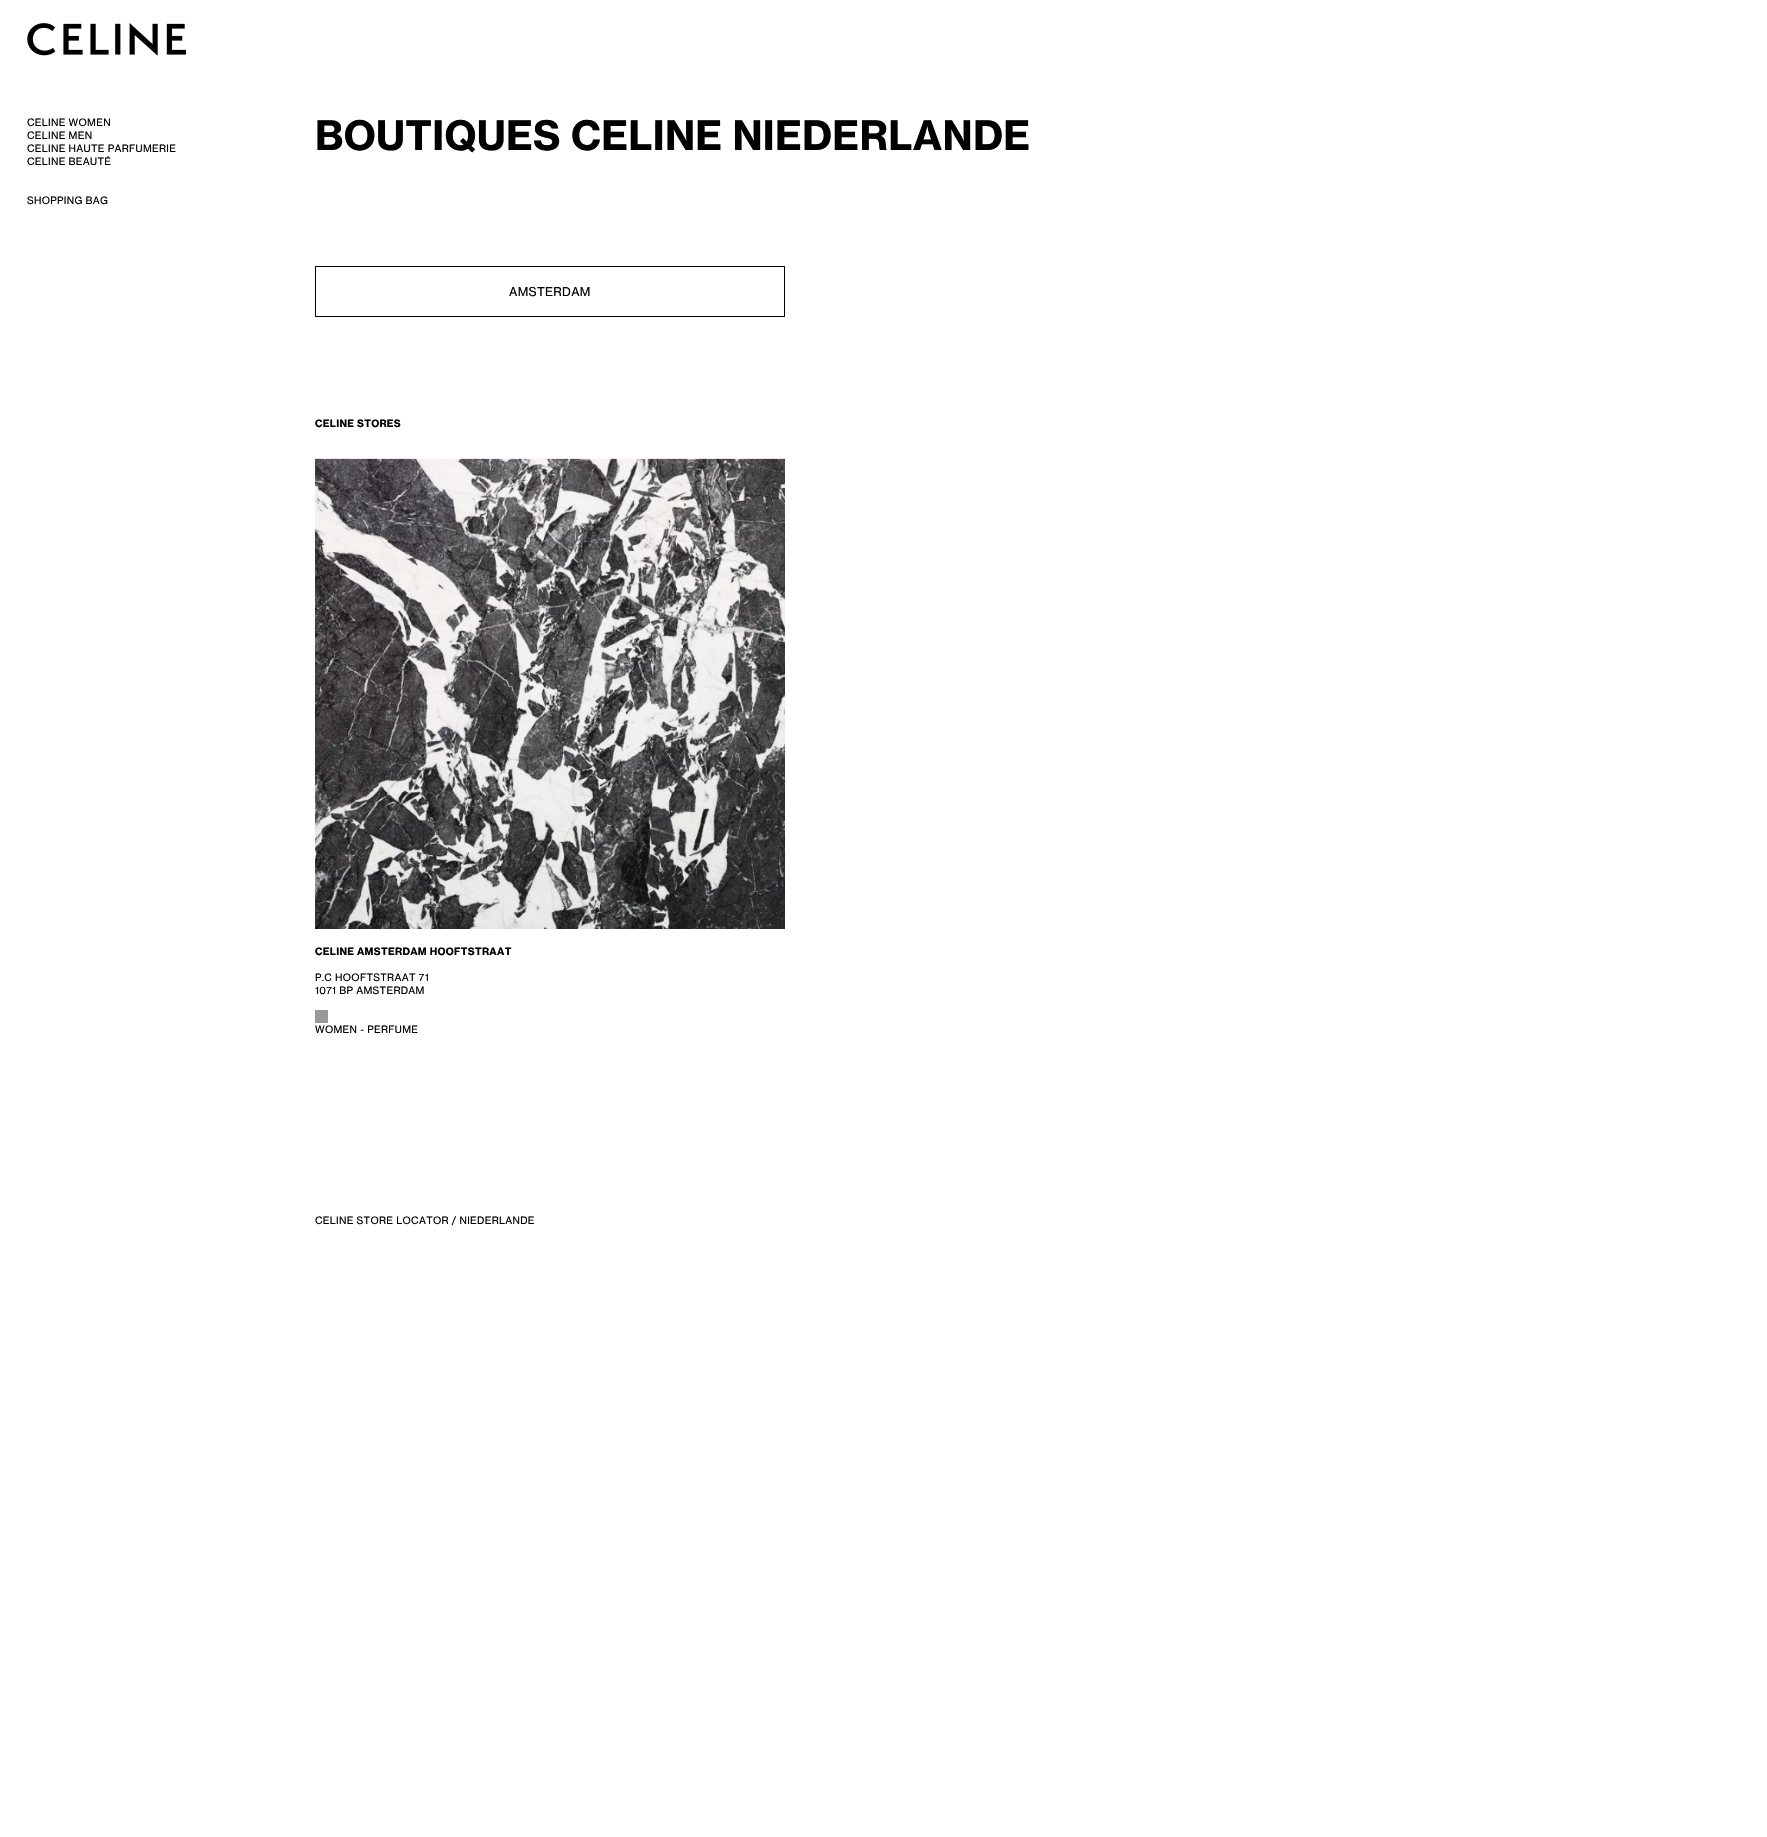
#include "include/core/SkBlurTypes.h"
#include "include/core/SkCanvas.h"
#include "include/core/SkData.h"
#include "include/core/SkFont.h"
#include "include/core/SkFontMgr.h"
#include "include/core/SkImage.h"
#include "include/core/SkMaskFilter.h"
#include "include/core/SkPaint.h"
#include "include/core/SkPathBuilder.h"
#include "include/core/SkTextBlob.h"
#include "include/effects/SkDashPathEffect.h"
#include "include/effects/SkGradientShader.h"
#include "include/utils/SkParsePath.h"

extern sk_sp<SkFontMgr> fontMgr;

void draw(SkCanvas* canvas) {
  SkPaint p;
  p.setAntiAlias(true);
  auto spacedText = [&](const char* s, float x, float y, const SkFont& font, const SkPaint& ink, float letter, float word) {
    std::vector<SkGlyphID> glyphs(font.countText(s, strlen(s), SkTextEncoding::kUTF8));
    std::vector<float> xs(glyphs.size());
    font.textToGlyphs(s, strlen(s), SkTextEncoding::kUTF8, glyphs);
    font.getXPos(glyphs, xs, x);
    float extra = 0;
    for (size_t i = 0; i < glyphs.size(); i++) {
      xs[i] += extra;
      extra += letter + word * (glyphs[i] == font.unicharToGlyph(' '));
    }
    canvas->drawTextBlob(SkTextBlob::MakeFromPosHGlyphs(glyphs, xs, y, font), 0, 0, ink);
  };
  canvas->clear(SK_ColorWHITE);
  canvas->drawImageRect(SkImages::DeferredFromEncodedData(SkData::MakeFromFileName("images/1.png")), SkRect::MakeLTRB(27, 23, 186, 56), SkSamplingOptions());
  p.setStyle(SkPaint::kStroke_Style);
  p.setStrokeWidth(1);
  p.setColor(SK_ColorBLACK);
  canvas->drawRect(SkRect::MakeLTRB(315.5f, 266.5f, 784.5f, 316.5f), p);
  canvas->drawImageRect(SkImages::DeferredFromEncodedData(SkData::MakeFromFileName("images/2.png")), SkRect::MakeLTRB(315, 458, 785, 929), SkSamplingOptions());
  p.setStyle(SkPaint::kFill_Style);
  p.setColor(SkColorSetRGB(153, 153, 153));
  canvas->drawRect(SkRect::MakeLTRB(315, 1010, 328, 1023), p);
  SkFont font1(fontMgr->matchFamilyStyle("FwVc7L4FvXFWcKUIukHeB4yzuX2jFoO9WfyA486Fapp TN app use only", SkFontStyle::Normal()), 10);
  font1.setSubpixel(true);
  p.setColor(SK_ColorBLACK);
  spacedText("CELINE WOMEN", 27, 126, font1, p, 0.3f, 0);
  spacedText("CELINE MEN", 27, 139, font1, p, 0.3f, 0);
  spacedText("CELINE HAUTE PARFUMERIE", 27, 152, font1, p, 0.3f, 0);
  spacedText("CELINE BEAUTÉ", 27, 165, font1, p, 0.3f, 0);
  spacedText("SHOPPING BAG", 27, 204, font1, p, 0.3f, 0);
  SkFont font2(fontMgr->matchFamilyStyle("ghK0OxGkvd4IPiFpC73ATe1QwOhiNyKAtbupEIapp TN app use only", SkFontStyle::Bold()), 40);
  font2.setSubpixel(true);
  spacedText("BOUTIQUES CELINE NIEDERLANDE", 315, 150, font2, p, 0.3f, 0);
  SkFont font3(fontMgr->matchFamilyStyle("FwVc7L4FvXFWcKUIukHeB4yzuX2jFoO9WfyA486Fapp TN app use only", SkFontStyle::Normal()), 12);
  font3.setSubpixel(true);
  spacedText("AMSTERDAM", 509, 296, font3, p, 0.3f, 0);
  SkFont font4(fontMgr->matchFamilyStyle("ghK0OxGkvd4IPiFpC73ATe1QwOhiNyKAtbupEIapp TN app use only", SkFontStyle::Bold()), 10);
  font4.setSubpixel(true);
  spacedText("CELINE STORES", 315, 427, font4, p, 0.3f, 0);
  spacedText("CELINE AMSTERDAM HOOFTSTRAAT", 315, 955, font4, p, 0.3f, 0);
  spacedText("P.C HOOFTSTRAAT 71", 315, 981, font1, p, 0.3f, 0);
  spacedText("1071 BP AMSTERDAM", 315, 994, font1, p, 0.3f, 0);
  spacedText("WOMEN - PERFUME", 315, 1033, font1, p, 0.3f, 0);
  spacedText("CELINE STORE LOCATOR / NIEDERLANDE", 315, 1224, font1, p, 0.3f, 0);
}
